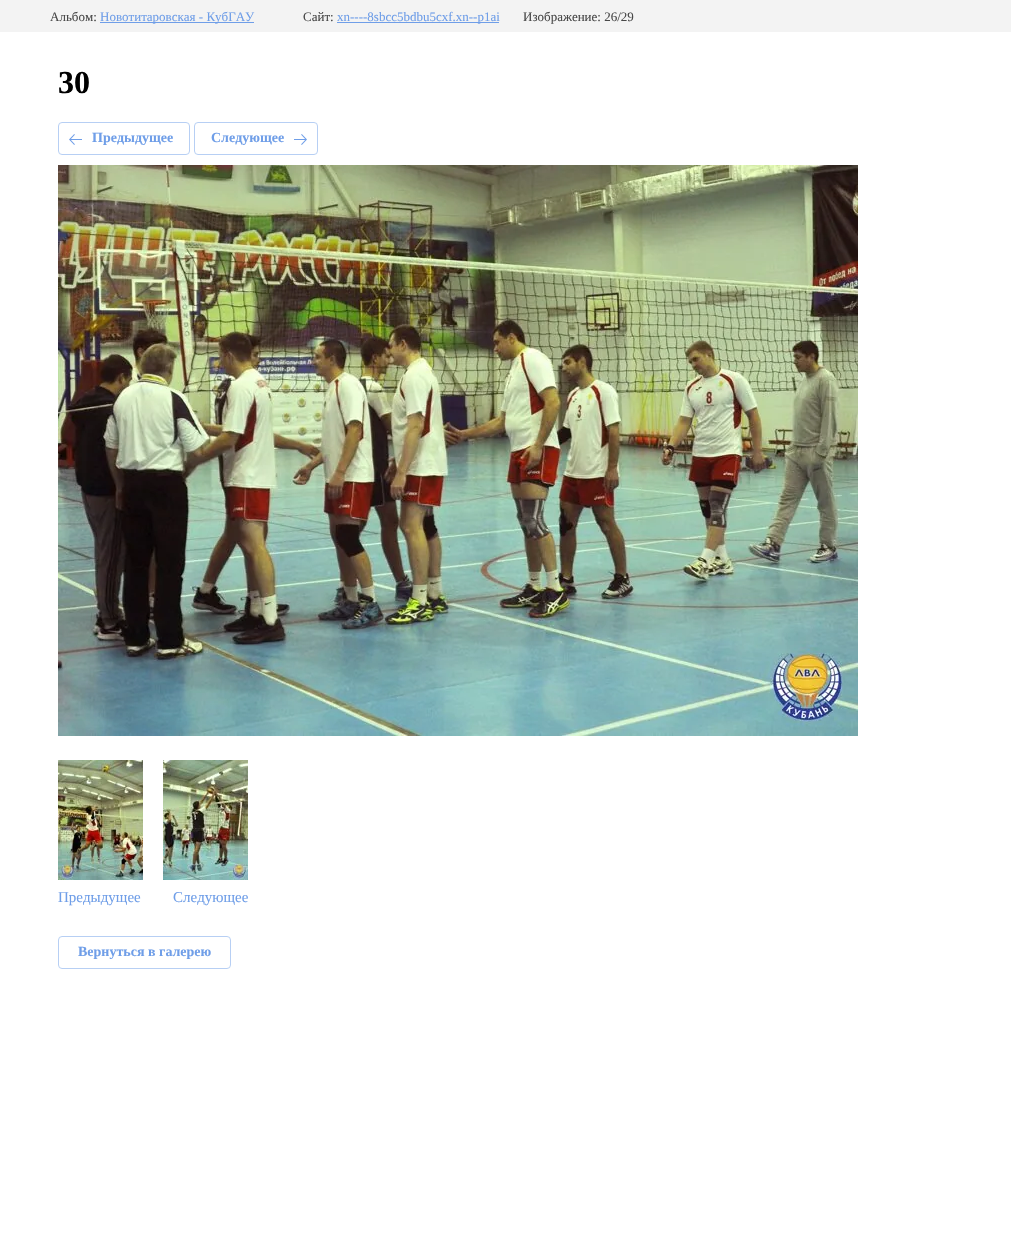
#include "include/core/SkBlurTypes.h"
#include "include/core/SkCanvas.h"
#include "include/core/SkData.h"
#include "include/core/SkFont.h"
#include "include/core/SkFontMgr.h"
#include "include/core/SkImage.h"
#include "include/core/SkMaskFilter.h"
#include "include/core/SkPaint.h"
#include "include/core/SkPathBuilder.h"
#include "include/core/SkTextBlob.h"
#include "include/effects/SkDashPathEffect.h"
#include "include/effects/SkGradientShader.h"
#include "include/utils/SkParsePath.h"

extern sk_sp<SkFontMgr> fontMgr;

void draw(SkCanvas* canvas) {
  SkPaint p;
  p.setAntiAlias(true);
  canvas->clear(SK_ColorWHITE);
  p.setColor(SkColorSetRGB(243, 243, 243));
  canvas->drawRect(SkRect::MakeLTRB(0, 0, 1011, 32), p);
  p.setColor(SkColorSetRGB(111, 158, 232));
  canvas->drawRect(SkRect::MakeLTRB(100, 22, 254, 23), p);
  canvas->drawRect(SkRect::MakeLTRB(337, 22, 499, 23), p);
  p.setStyle(SkPaint::kStroke_Style);
  p.setStrokeWidth(1);
  p.setColor(SkColorSetRGB(183, 207, 244));
  canvas->drawRoundRect(SkRect::MakeLTRB(58.5f, 122.5f, 189.5f, 154.5f), 3.5f, 3.5f, p);
  canvas->drawImageRect(SkImages::DeferredFromEncodedData(SkData::MakeFromFileName("images/1.png")), SkRect::MakeLTRB(69, 134, 82, 145), SkSamplingOptions());
  canvas->drawRoundRect(SkRect::MakeLTRB(194.5f, 122.5f, 317.5f, 154.5f), 3.5f, 3.5f, p);
  canvas->drawImageRect(SkImages::DeferredFromEncodedData(SkData::MakeFromFileName("images/2.png")), SkRect::MakeLTRB(294, 134, 307, 145), SkSamplingOptions());
  canvas->drawImageRect(SkImages::DeferredFromEncodedData(SkData::MakeFromFileName("images/3.png")), SkRect::MakeLTRB(58, 165, 858, 736), SkSamplingOptions());
  canvas->drawImageRect(SkImages::DeferredFromEncodedData(SkData::MakeFromFileName("images/4.png")), SkRect::MakeLTRB(58, 760, 143, 880), SkSamplingOptions());
  canvas->drawImageRect(SkImages::DeferredFromEncodedData(SkData::MakeFromFileName("images/5.png")), SkRect::MakeLTRB(163, 760, 248, 880), SkSamplingOptions());
  canvas->drawRoundRect(SkRect::MakeLTRB(58.5f, 936.5f, 230.5f, 968.5f), 3.5f, 3.5f, p);
  SkFont font1(fontMgr->matchFamilyStyle("Liberation Serif", SkFontStyle::Normal()), 13);
  font1.setSubpixel(true);
  p.setStyle(SkPaint::kFill_Style);
  p.setColor(SkColorSetRGB(72, 72, 72));
  canvas->drawString("Альбом:", 50, 21, font1, p);
  p.setColor(SkColorSetRGB(111, 158, 232));
  canvas->drawString("Новотитаровская - КубГАУ", 100, 21, font1, p);
  p.setColor(SkColorSetRGB(72, 72, 72));
  canvas->drawString("Сайт:", 303, 21, font1, p);
  p.setColor(SkColorSetRGB(111, 158, 232));
  canvas->drawString("xn----8sbcc5bdbu5cxf.xn--p1ai", 337, 21, font1, p);
  p.setColor(SkColorSetRGB(72, 72, 72));
  canvas->drawString("Изображение: 26/29", 523, 21, font1, p);
  SkFont font2(fontMgr->matchFamilyStyle("Liberation Serif", SkFontStyle::Bold()), 32);
  font2.setSubpixel(true);
  p.setColor(SK_ColorBLACK);
  canvas->drawString("30", 58, 93, font2, p);
  SkFont font3(fontMgr->matchFamilyStyle("Liberation Serif", SkFontStyle::Bold()), 14);
  font3.setSubpixel(true);
  p.setColor(SkColorSetRGB(111, 158, 232));
  canvas->drawString("Предыдущее", 92, 142, font3, p);
  canvas->drawString("Следующее", 211, 142, font3, p);
  SkFont font4(fontMgr->matchFamilyStyle("Liberation Serif", SkFontStyle::Normal()), 15);
  font4.setSubpixel(true);
  canvas->drawString("Предыдущее", 58, 902, font4, p);
  canvas->drawString("Следующее", 173, 902, font4, p);
  canvas->drawString("Вернуться в галерею", 78, 956, font3, p);
}
